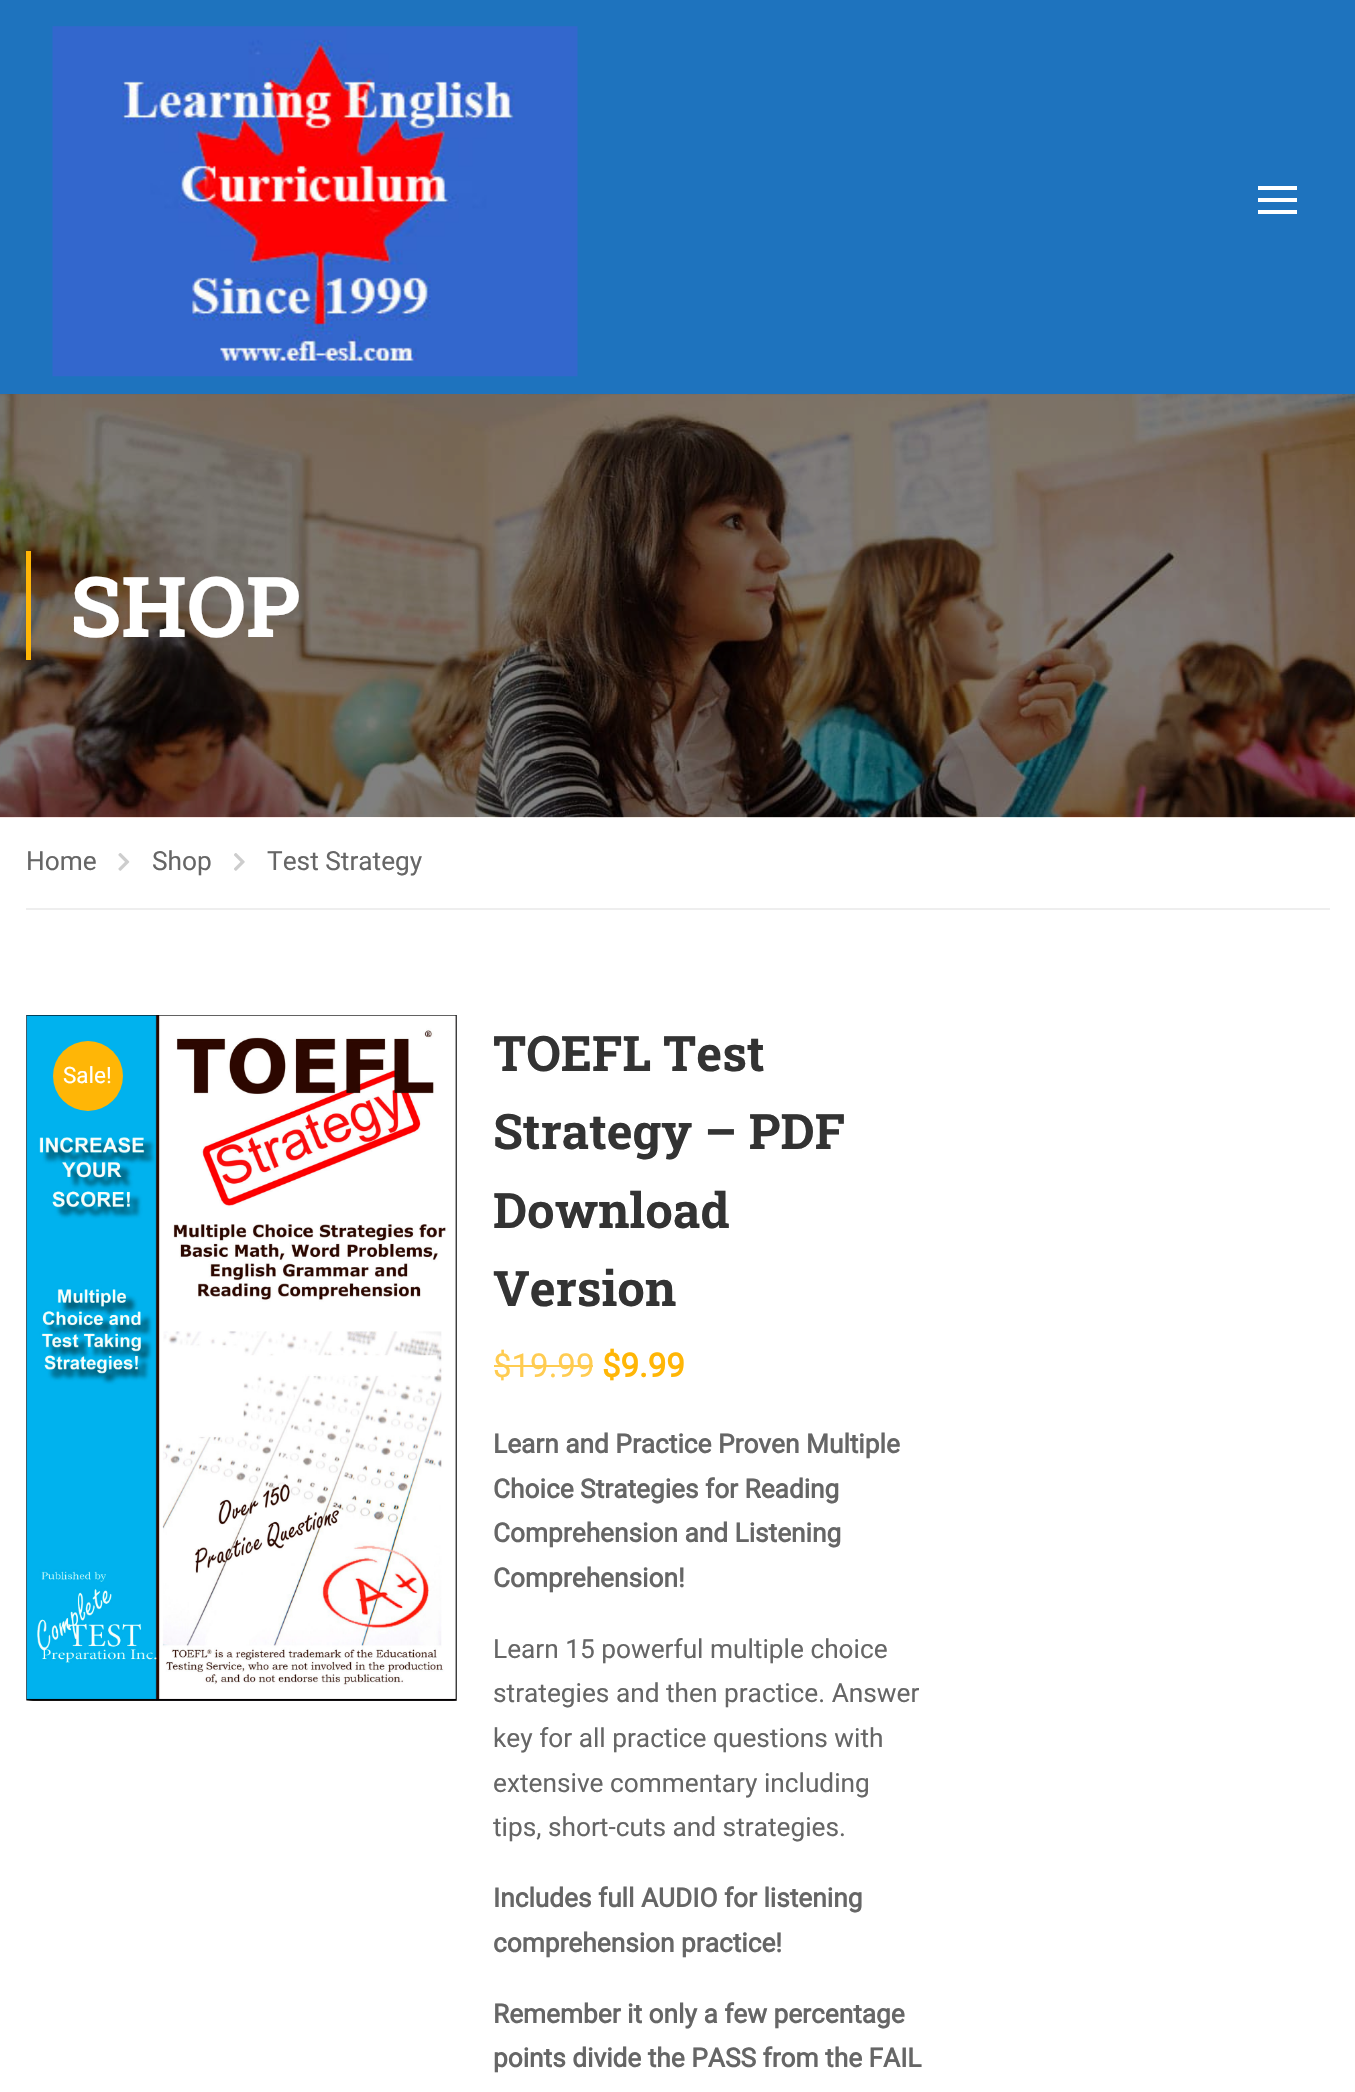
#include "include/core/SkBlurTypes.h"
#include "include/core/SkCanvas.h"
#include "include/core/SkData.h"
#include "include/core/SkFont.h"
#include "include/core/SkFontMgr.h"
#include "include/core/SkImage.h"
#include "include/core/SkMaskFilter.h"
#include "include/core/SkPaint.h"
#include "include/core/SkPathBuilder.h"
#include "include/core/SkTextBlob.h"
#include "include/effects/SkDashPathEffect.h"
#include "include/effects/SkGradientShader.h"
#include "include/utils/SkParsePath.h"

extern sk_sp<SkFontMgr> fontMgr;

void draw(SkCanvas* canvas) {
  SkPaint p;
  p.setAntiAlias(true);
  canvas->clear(SK_ColorWHITE);
  p.setColor(SkColorSetRGB(30, 115, 190));
  canvas->drawRect(SkRect::MakeLTRB(0, 0, 1355, 394), p);
  canvas->drawImageRect(SkImages::DeferredFromEncodedData(SkData::MakeFromFileName("images/1.png")), SkRect::MakeLTRB(52, 26, 578, 377), SkSamplingOptions());
  p.setColor(SK_ColorWHITE);
  canvas->drawRect(SkRect::MakeLTRB(1258, 186, 1297, 190), p);
  canvas->drawRect(SkRect::MakeLTRB(1258, 198, 1297, 202), p);
  canvas->drawRect(SkRect::MakeLTRB(1258, 210, 1297, 214), p);
  canvas->drawImageRect(SkImages::DeferredFromEncodedData(SkData::MakeFromFileName("images/2.png")), SkRect::MakeLTRB(0, 394, 1355, 818), SkSamplingOptions());
  p.setColor(SkColorSetRGB(255, 182, 6));
  canvas->drawRect(SkRect::MakeLTRB(26, 551, 31, 660), p);
  p.setColor(SkColorSetRGB(238, 238, 238));
  canvas->drawRect(SkRect::MakeLTRB(26, 908, 1330, 910), p);
  canvas->drawImageRect(SkImages::DeferredFromEncodedData(SkData::MakeFromFileName("images/3.png")), SkRect::MakeLTRB(118, 853, 130, 871), SkSamplingOptions());
  canvas->drawImageRect(SkImages::DeferredFromEncodedData(SkData::MakeFromFileName("images/4.png")), SkRect::MakeLTRB(234, 853, 245, 871), SkSamplingOptions());
  canvas->drawImageRect(SkImages::DeferredFromEncodedData(SkData::MakeFromFileName("images/5.png")), SkRect::MakeLTRB(26, 1015, 457, 1701), SkSamplingOptions());
  p.setColor(SkColorSetRGB(255, 204, 81));
  canvas->drawRect(SkRect::MakeLTRB(494, 1365, 593, 1367), p);
  p.setColor(SkColorSetRGB(255, 182, 6));
  canvas->drawCircle(88, 1076, 35, p);
  SkFont font1(fontMgr->matchFamilyStyle("Roboto Slab", SkFontStyle::Bold()), 84);
  font1.setSubpixel(true);
  p.setColor(SK_ColorWHITE);
  canvas->drawString("SHOP", 70, 637, font1, p);
  SkFont font2(fontMgr->matchFamilyStyle("Roboto", SkFontStyle::Normal()), 26.25f);
  font2.setSubpixel(true);
  p.setColor(SkColorSetRGB(102, 102, 102));
  canvas->drawString("Home", 26, 870, font2, p);
  canvas->drawString("Shop", 152, 870, font2, p);
  canvas->drawString("Test Strategy", 267, 870, font2, p);
  SkFont font3(fontMgr->matchFamilyStyle("Roboto Slab", SkFontStyle::Bold()), 49);
  font3.setSubpixel(true);
  p.setColor(SkColorSetRGB(51, 51, 51));
  canvas->drawString("TOEFL Test", 493, 1071, font3, p);
  canvas->drawString("Strategy – PDF", 493, 1149, font3, p);
  canvas->drawString("Download", 493, 1228, font3, p);
  canvas->drawString("Version", 493, 1306, font3, p);
  SkFont font4(fontMgr->matchFamilyStyle("Roboto", SkFontStyle::Normal()), 33);
  font4.setSubpixel(true);
  p.setColor(SkColorSetRGB(255, 204, 81));
  canvas->drawString("$19.99", 493, 1377, font4, p);
  SkFont font5(fontMgr->matchFamilyStyle("Roboto", SkFontStyle::Bold()), 33);
  font5.setSubpixel(true);
  p.setColor(SkColorSetRGB(255, 182, 6));
  canvas->drawString("$9.99", 602, 1377, font5, p);
  SkFont font6(fontMgr->matchFamilyStyle("Roboto", SkFontStyle::Bold()), 26.25f);
  font6.setSubpixel(true);
  p.setColor(SkColorSetRGB(102, 102, 102));
  canvas->drawString("Learn and Practice Proven Multiple", 493, 1453, font6, p);
  canvas->drawString("Choice Strategies for Reading", 493, 1498, font6, p);
  canvas->drawString("Comprehension and Listening", 493, 1542, font6, p);
  canvas->drawString("Comprehension!", 493, 1587, font6, p);
  canvas->drawString("Learn 15 powerful multiple choice", 493, 1658, font2, p);
  canvas->drawString("strategies and then practice. Answer", 493, 1702, font2, p);
  canvas->drawString("key for all practice questions with", 493, 1747, font2, p);
  canvas->drawString("extensive commentary including", 493, 1792, font2, p);
  canvas->drawString("tips, short-cuts and strategies.", 493, 1836, font2, p);
  canvas->drawString("Includes full AUDIO for listening", 493, 1907, font6, p);
  canvas->drawString("comprehension practice!", 493, 1952, font6, p);
  canvas->drawString("Remember it only a few percentage", 493, 2023, font6, p);
  canvas->drawString("points divide the PASS from the FAIL", 493, 2067, font6, p);
  SkFont font7(fontMgr->matchFamilyStyle("Roboto", SkFontStyle::Normal()), 22.5f);
  font7.setSubpixel(true);
  p.setColor(SK_ColorWHITE);
  canvas->drawString("Sale!", 63, 1083, font7, p);
}
